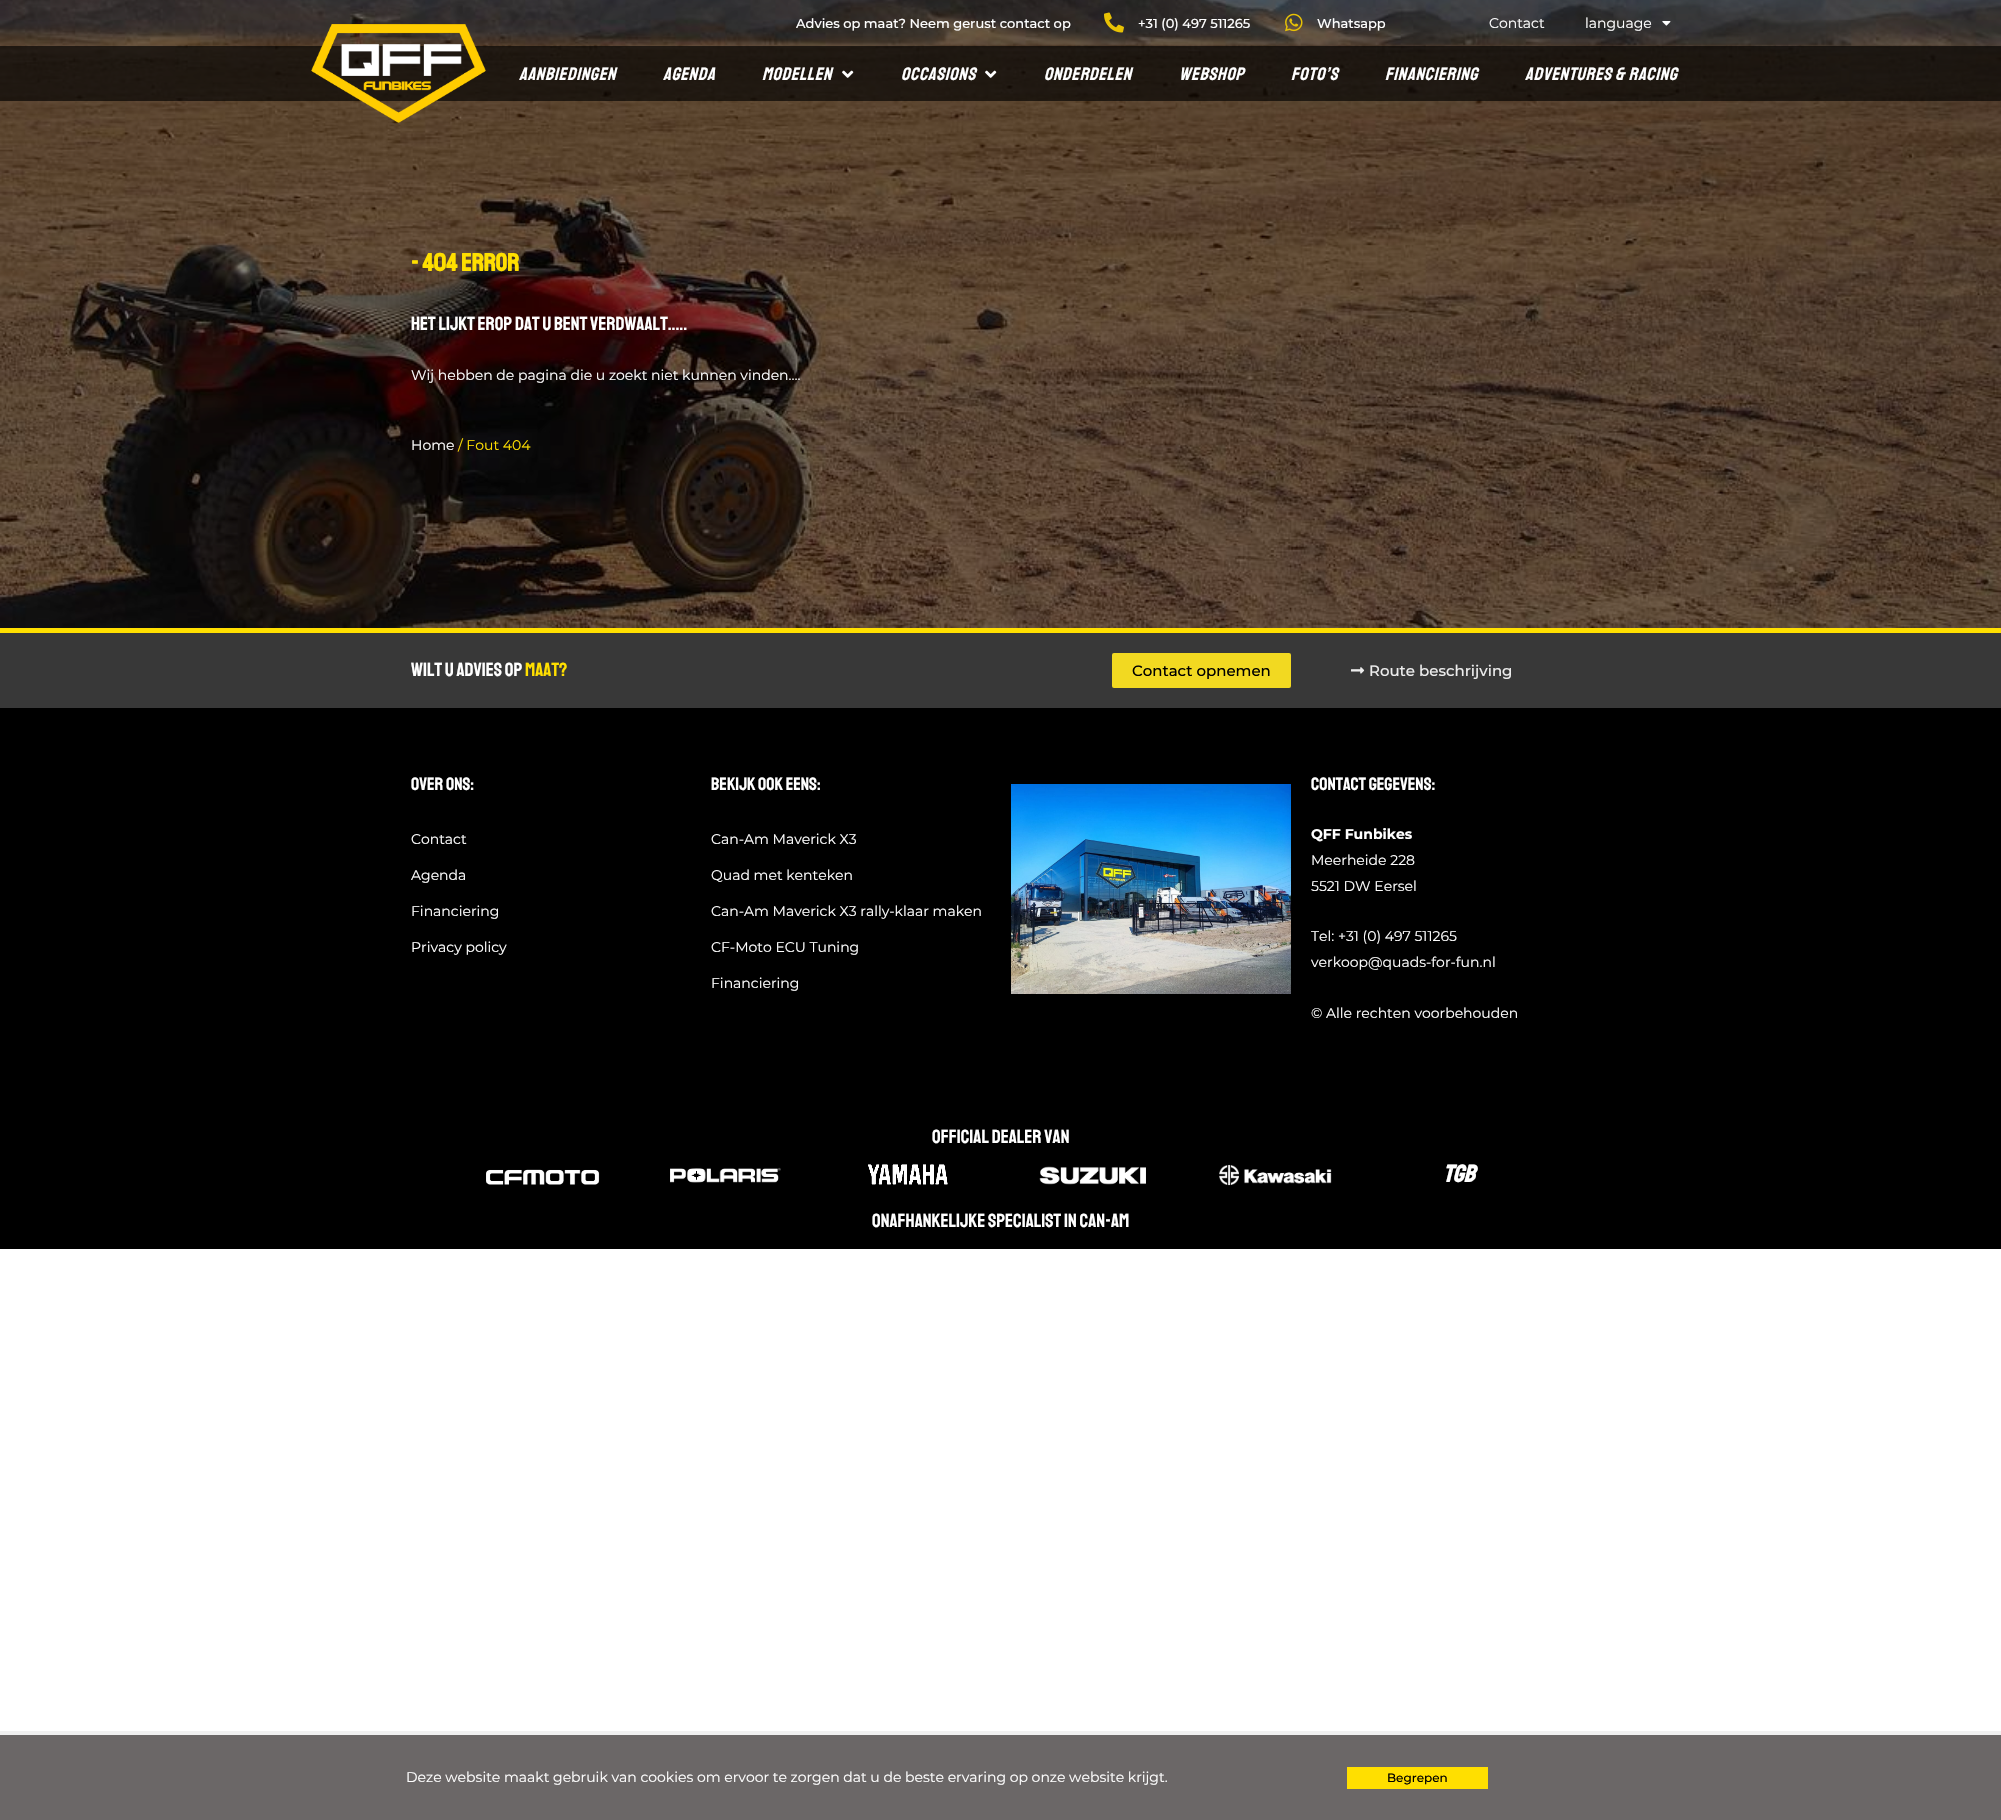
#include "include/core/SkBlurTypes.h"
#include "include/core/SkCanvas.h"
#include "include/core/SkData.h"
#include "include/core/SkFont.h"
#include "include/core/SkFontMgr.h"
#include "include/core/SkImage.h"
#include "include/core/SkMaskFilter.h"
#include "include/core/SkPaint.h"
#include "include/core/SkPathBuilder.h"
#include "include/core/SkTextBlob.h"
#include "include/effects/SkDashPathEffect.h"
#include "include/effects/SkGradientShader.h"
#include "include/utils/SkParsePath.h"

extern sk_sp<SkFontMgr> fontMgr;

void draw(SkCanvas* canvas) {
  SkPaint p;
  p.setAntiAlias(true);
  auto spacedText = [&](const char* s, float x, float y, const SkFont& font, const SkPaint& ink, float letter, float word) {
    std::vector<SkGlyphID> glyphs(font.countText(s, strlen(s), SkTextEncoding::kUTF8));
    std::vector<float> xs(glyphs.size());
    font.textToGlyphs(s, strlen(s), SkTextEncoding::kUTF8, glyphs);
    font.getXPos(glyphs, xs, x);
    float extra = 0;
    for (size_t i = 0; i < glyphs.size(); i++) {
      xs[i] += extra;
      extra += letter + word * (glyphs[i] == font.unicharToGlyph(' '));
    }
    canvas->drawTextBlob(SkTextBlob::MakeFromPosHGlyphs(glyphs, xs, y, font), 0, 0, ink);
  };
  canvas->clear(SK_ColorWHITE);
  canvas->drawImageRect(SkImages::DeferredFromEncodedData(SkData::MakeFromFileName("images/7.png")), SkRect::MakeLTRB(0, 0, 2001, 628), SkSamplingOptions());
  canvas->drawImageRect(SkImages::DeferredFromEncodedData(SkData::MakeFromFileName("images/1.png")), SkRect::MakeLTRB(1104, 12, 1124, 33), SkSamplingOptions());
  canvas->drawImageRect(SkImages::DeferredFromEncodedData(SkData::MakeFromFileName("images/2.png")), SkRect::MakeLTRB(1285, 13, 1303, 32), SkSamplingOptions());
  canvas->drawImageRect(SkImages::DeferredFromEncodedData(SkData::MakeFromFileName("images/3.png")), SkRect::MakeLTRB(1662, 21, 1671, 26), SkSamplingOptions());
  p.setColor(SkColorSetARGB(168, 0, 0, 0));
  canvas->drawPath(SkPathBuilder().moveTo(0, 46).lineTo(2001, 46).lineTo(2001, 100).cubicTo(2001, 100.5f, 2000.5f, 101, 2000, 101).lineTo(0, 101).close().detach(), p);
  canvas->drawImageRect(SkImages::DeferredFromEncodedData(SkData::MakeFromFileName("images/4.png")), SkRect::MakeLTRB(311, 24, 486, 123), SkSamplingOptions());
  canvas->drawImageRect(SkImages::DeferredFromEncodedData(SkData::MakeFromFileName("images/5.png")), SkRect::MakeLTRB(842, 70, 854, 78), SkSamplingOptions());
  canvas->drawImageRect(SkImages::DeferredFromEncodedData(SkData::MakeFromFileName("images/6.png")), SkRect::MakeLTRB(985, 70, 997, 78), SkSamplingOptions());
  p.setColor(SkColorSetRGB(56, 56, 56));
  canvas->drawRect(SkRect::MakeLTRB(0, 633, 2001, 708), p);
  p.setColor(SkColorSetRGB(255, 223, 0));
  canvas->drawRect(SkRect::MakeLTRB(0, 628, 2001, 633), p);
  p.setColor(SkColorSetRGB(242, 217, 33));
  canvas->drawRoundRect(SkRect::MakeLTRB(1112, 653, 1291, 688), 2, 2, p);
  canvas->drawImageRect(SkImages::DeferredFromEncodedData(SkData::MakeFromFileName("images/8.png")), SkRect::MakeLTRB(1351, 667, 1365, 674), SkSamplingOptions());
  p.setColor(SK_ColorBLACK);
  canvas->drawRect(SkRect::MakeLTRB(0, 708, 2001, 1249), p);
  canvas->drawImageRect(SkImages::DeferredFromEncodedData(SkData::MakeFromFileName("images/9.png")), SkRect::MakeLTRB(1011, 784, 1291, 994), SkSamplingOptions());
  canvas->drawImageRect(SkImages::DeferredFromEncodedData(SkData::MakeFromFileName("images/10.png")), SkRect::MakeLTRB(486, 1169, 600, 1185), SkSamplingOptions());
  canvas->drawImageRect(SkImages::DeferredFromEncodedData(SkData::MakeFromFileName("images/11.png")), SkRect::MakeLTRB(670, 1167, 781, 1183), SkSamplingOptions());
  canvas->drawImageRect(SkImages::DeferredFromEncodedData(SkData::MakeFromFileName("images/12.png")), SkRect::MakeLTRB(868, 1164, 948, 1185), SkSamplingOptions());
  canvas->drawImageRect(SkImages::DeferredFromEncodedData(SkData::MakeFromFileName("images/13.png")), SkRect::MakeLTRB(1039, 1166, 1146, 1185), SkSamplingOptions());
  canvas->drawImageRect(SkImages::DeferredFromEncodedData(SkData::MakeFromFileName("images/14.png")), SkRect::MakeLTRB(1219, 1164, 1332, 1186), SkSamplingOptions());
  p.setColor(SkColorSetRGB(107, 103, 103));
  canvas->drawRect(SkRect::MakeLTRB(0, 1735, 2001, 1820), p);
  p.setColor(SkColorSetRGB(240, 240, 240));
  canvas->drawRect(SkRect::MakeLTRB(0, 1731, 2001, 1735), p);
  p.setColor(SkColorSetRGB(255, 223, 0));
  canvas->drawRect(SkRect::MakeLTRB(1347, 1767, 1488, 1789), p);
  SkFont font1(fontMgr->matchFamilyStyle("Montserrat", SkFontStyle(500, SkFontStyle::kNormal_Width, SkFontStyle::kUpright_Slant)), 13);
  font1.setSubpixel(true);
  p.setColor(SK_ColorWHITE);
  canvas->drawString("Advies op maat? Neem gerust contact op", 796, 28, font1, p);
  canvas->drawString("+31 (0) 497 511265", 1138, 28, font1, p);
  canvas->drawString("Whatsapp", 1317, 28, font1, p);
  SkFont font2(fontMgr->matchFamilyStyle("Montserrat", SkFontStyle::Normal()), 14);
  font2.setSubpixel(true);
  canvas->drawString("Contact", 1489, 28, font2, p);
  canvas->drawString("language", 1585, 28, font2, p);
  SkFont font3(fontMgr->matchFamilyStyle("Staatliches", SkFontStyle::Italic()), 18);
  font3.setSubpixel(true);
  spacedText("Aanbiedingen", 519, 80, font3, p, 0.75f, 0);
  spacedText("Agenda", 663, 80, font3, p, 0.75f, 0);
  spacedText("Modellen", 762, 80, font3, p, 0.75f, 0);
  spacedText("Occasions", 901, 80, font3, p, 0.75f, 0);
  spacedText("Onderdelen", 1044, 80, font3, p, 0.75f, 0);
  spacedText("Webshop", 1179, 80, font3, p, 0.75f, 0);
  spacedText("Foto’s", 1291, 80, font3, p, 0.75f, 0);
  spacedText("Financiering", 1385, 80, font3, p, 0.75f, 0);
  spacedText("Adventures & Racing", 1525, 80, font3, p, 0.75f, 0);
  SkFont font4(fontMgr->matchFamilyStyle("Staatliches", SkFontStyle::Bold()), 25);
  font4.setSubpixel(true);
  p.setColor(SkColorSetRGB(255, 223, 0));
  canvas->drawString("- 404 Error", 411, 271, font4, p);
  SkFont font5(fontMgr->matchFamilyStyle("Staatliches", SkFontStyle::Normal()), 19);
  font5.setSubpixel(true);
  p.setColor(SK_ColorWHITE);
  canvas->drawString("Het lijkt erop dat u bent verdwaalt.....", 411, 330, font5, p);
  canvas->drawString("Wij hebben de pagina die u zoekt niet kunnen vinden….", 411, 380, font2, p);
  canvas->drawString("Home", 411, 450, font2, p);
  p.setColor(SkColorSetRGB(255, 223, 0));
  canvas->drawString("/ Fout 404", 458, 450, font2, p);
  p.setColor(SK_ColorWHITE);
  canvas->drawString("Wilt u advies op", 411, 676, font5, p);
  p.setColor(SkColorSetRGB(255, 223, 0));
  canvas->drawString("maat?", 525, 676, font5, p);
  SkFont font6(fontMgr->matchFamilyStyle("Montserrat", SkFontStyle(500, SkFontStyle::kNormal_Width, SkFontStyle::kUpright_Slant)), 15);
  font6.setSubpixel(true);
  p.setColor(SK_ColorBLACK);
  canvas->drawString("Contact opnemen", 1132, 676, font6, p);
  p.setColor(SkColorSetRGB(237, 237, 237));
  canvas->drawString("Route beschrijving", 1369, 676, font6, p);
  SkFont font7(fontMgr->matchFamilyStyle("Staatliches", SkFontStyle::Normal()), 18);
  font7.setSubpixel(true);
  p.setColor(SK_ColorWHITE);
  canvas->drawString("Over ons:", 411, 790, font7, p);
  canvas->drawString("Contact", 411, 844, font2, p);
  canvas->drawString("Agenda", 411, 880, font2, p);
  canvas->drawString("Financiering", 411, 916, font2, p);
  canvas->drawString("Privacy policy", 411, 952, font2, p);
  canvas->drawString("Bekijk ook eens:", 711, 790, font7, p);
  canvas->drawString("Can-Am Maverick X3", 711, 844, font2, p);
  canvas->drawString("Quad met kenteken", 711, 880, font2, p);
  canvas->drawString("Can-Am Maverick X3 rally-klaar maken", 711, 916, font2, p);
  canvas->drawString("CF-Moto ECU Tuning", 711, 952, font2, p);
  canvas->drawString("Financiering", 711, 988, font2, p);
  canvas->drawString("Contact gegevens:", 1311, 790, font7, p);
  SkFont font8(fontMgr->matchFamilyStyle("Montserrat", SkFontStyle::Bold()), 14);
  font8.setSubpixel(true);
  canvas->drawString("QFF Funbikes", 1311, 839, font8, p);
  canvas->drawString("Meerheide 228", 1311, 865, font2, p);
  canvas->drawString("5521 DW Eersel", 1311, 891, font2, p);
  canvas->drawString("Tel: +31 (0) 497 511265", 1311, 941, font2, p);
  canvas->drawString("verkoop@quads-for-fun.nl", 1311, 967, font2, p);
  canvas->drawString("© Alle rechten voorbehouden", 1311, 1018, font2, p);
  canvas->drawString("Official dealer van", 932, 1143, font5, p);
  SkFont font9(fontMgr->matchFamilyStyle("Staatliches", SkFontStyle::BoldItalic()), 24);
  font9.setSubpixel(true);
  canvas->drawString("TGB", 1443, 1182, font9, p);
  canvas->drawString("Onafhankelijke specialist in Can-Am", 872, 1227, font5, p);
  canvas->drawString("Deze website maakt gebruik van cookies om ervoor te zorgen dat u de beste ervaring op onze website krijgt.", 406, 1782, font2, p);
  SkFont font10(fontMgr->matchFamilyStyle("Montserrat", SkFontStyle(500, SkFontStyle::kNormal_Width, SkFontStyle::kUpright_Slant)), 12);
  font10.setSubpixel(true);
  p.setColor(SK_ColorBLACK);
  canvas->drawString("Begrepen", 1387, 1782, font10, p);
}
